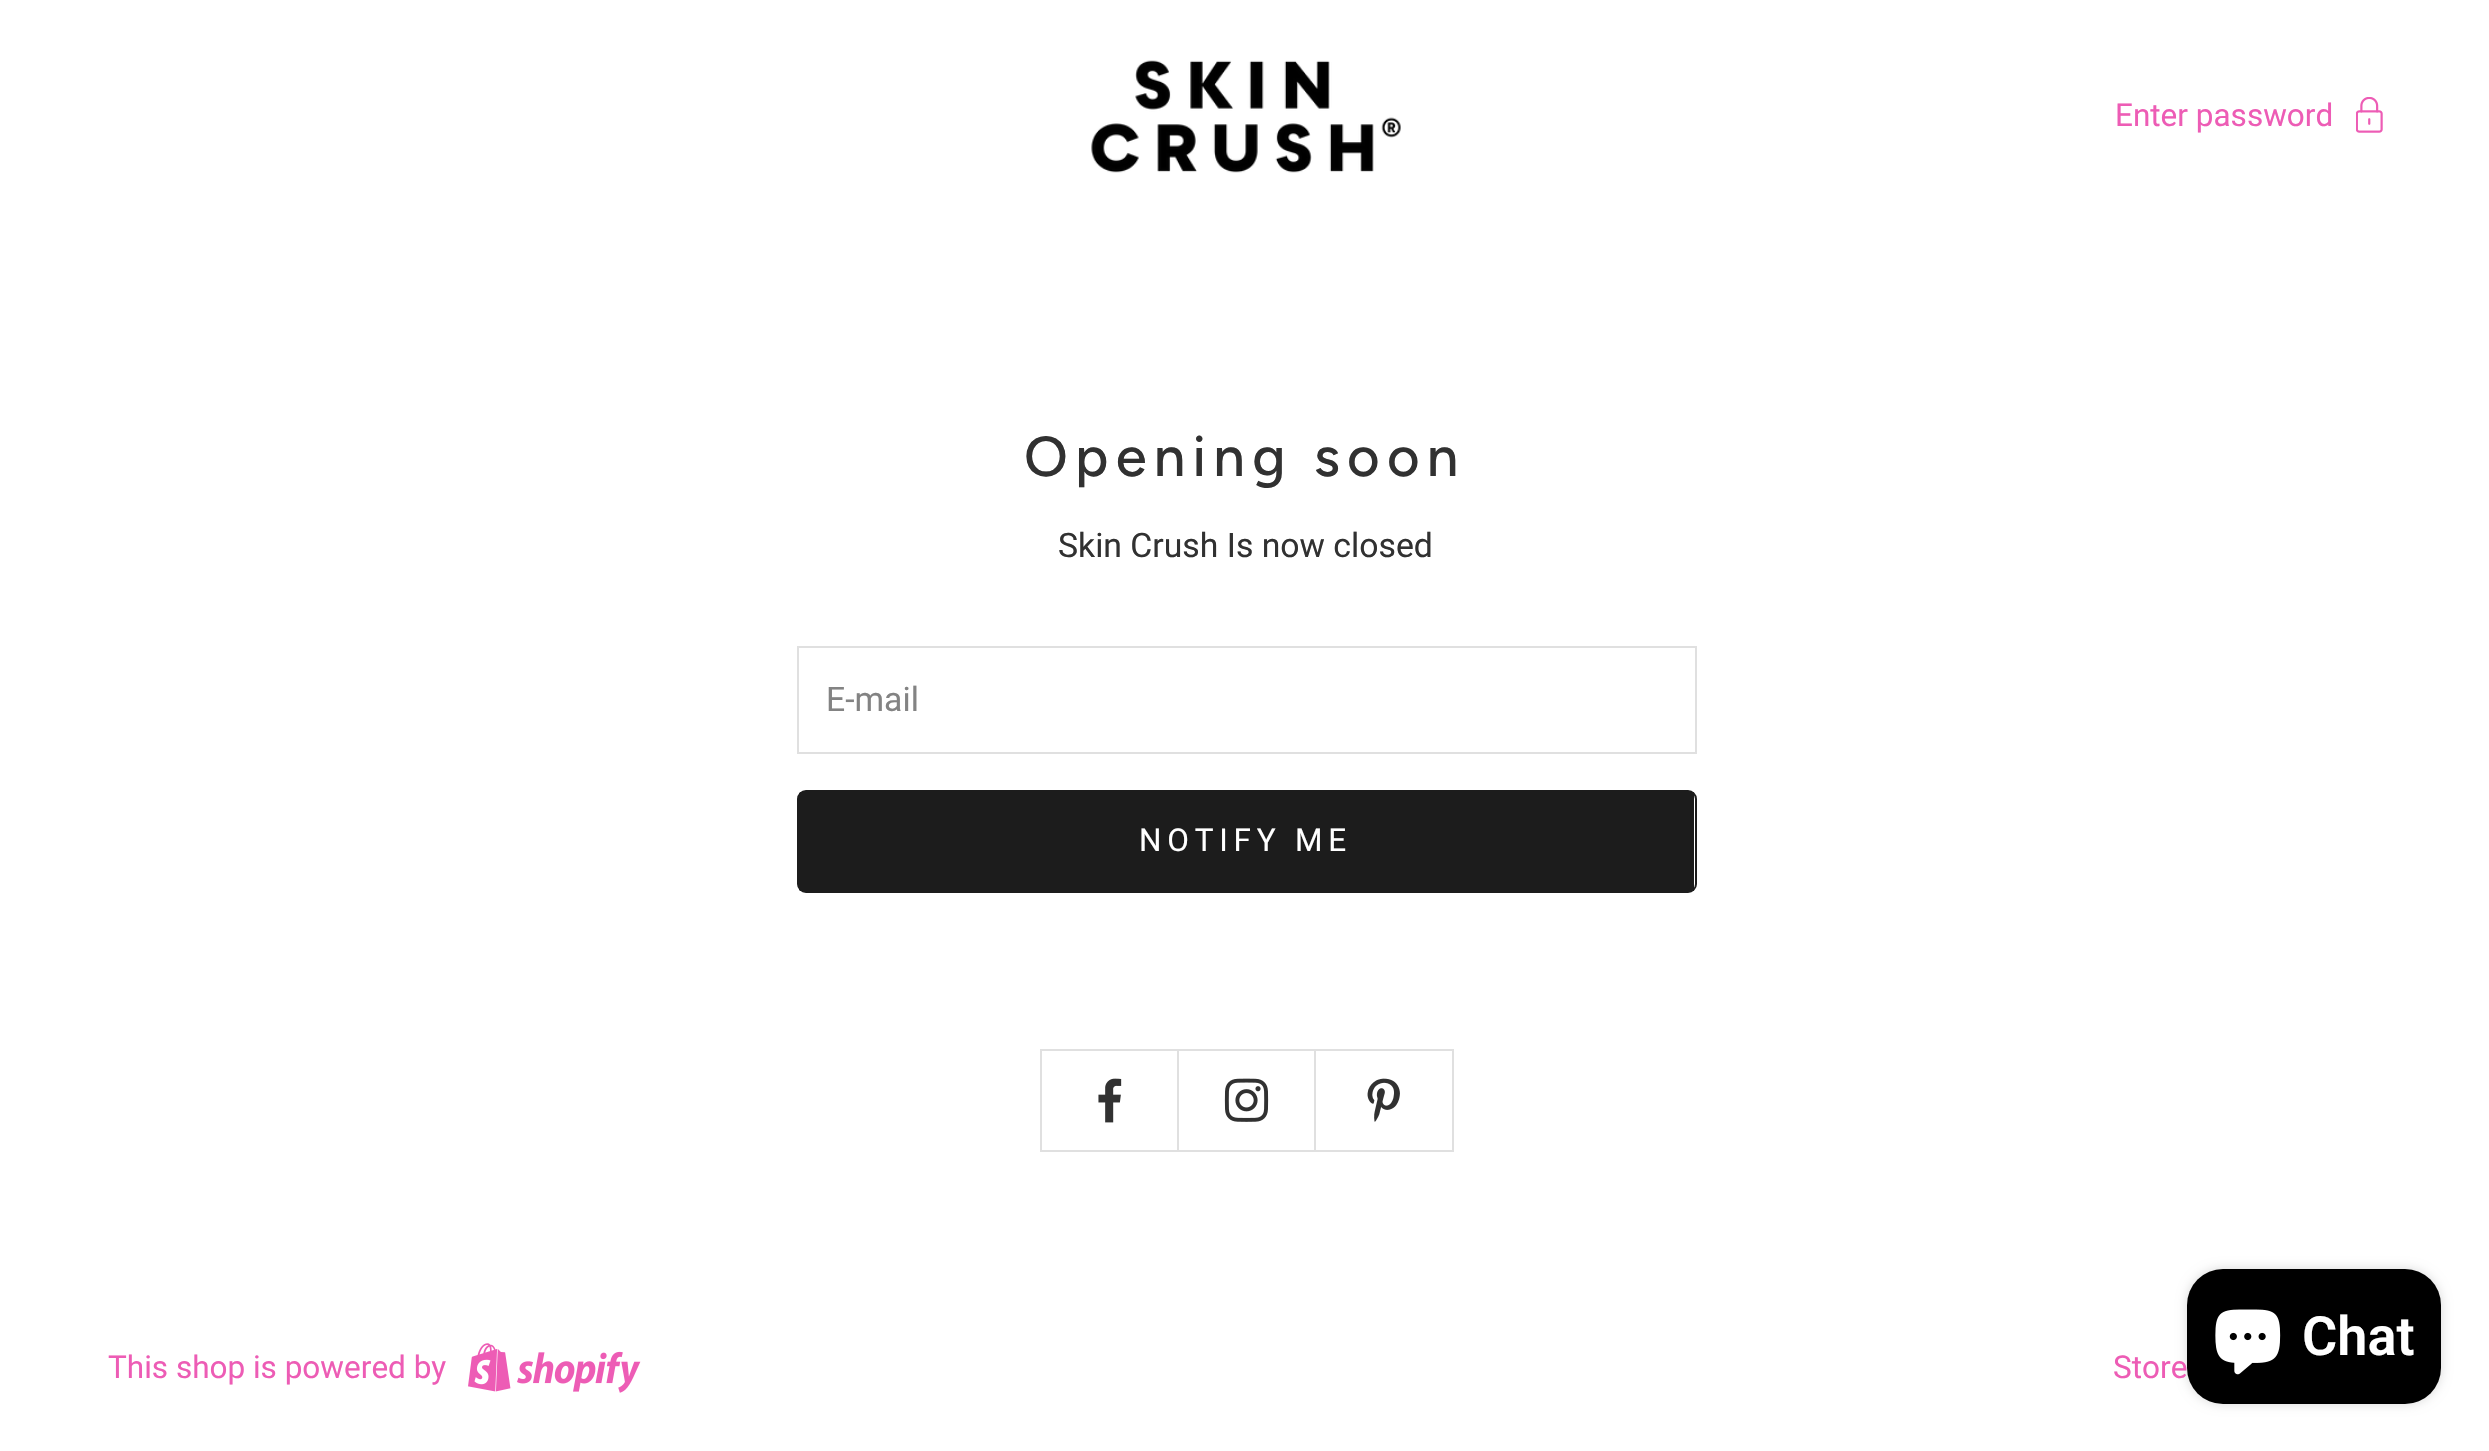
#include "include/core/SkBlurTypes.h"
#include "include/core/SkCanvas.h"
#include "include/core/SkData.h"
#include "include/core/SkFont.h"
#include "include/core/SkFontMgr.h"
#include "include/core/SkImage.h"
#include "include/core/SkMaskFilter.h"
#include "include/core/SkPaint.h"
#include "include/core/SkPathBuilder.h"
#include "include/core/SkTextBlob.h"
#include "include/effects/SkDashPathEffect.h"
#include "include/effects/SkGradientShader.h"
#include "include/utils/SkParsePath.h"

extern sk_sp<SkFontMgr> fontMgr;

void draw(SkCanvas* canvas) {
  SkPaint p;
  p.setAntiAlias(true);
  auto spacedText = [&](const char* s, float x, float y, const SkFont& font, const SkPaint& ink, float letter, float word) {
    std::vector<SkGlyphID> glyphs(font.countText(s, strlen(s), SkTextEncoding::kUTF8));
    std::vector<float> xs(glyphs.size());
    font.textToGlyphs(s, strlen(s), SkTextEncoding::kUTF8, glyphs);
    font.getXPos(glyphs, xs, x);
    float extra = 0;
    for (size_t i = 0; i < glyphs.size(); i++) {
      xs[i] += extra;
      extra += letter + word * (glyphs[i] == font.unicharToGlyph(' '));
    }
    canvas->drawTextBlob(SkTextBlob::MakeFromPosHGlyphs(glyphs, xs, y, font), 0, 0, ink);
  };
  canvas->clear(SK_ColorWHITE);
  canvas->drawImageRect(SkImages::DeferredFromEncodedData(SkData::MakeFromFileName("images/1.png")), SkRect::MakeLTRB(1091, 60, 1401, 173), SkSamplingOptions());
  canvas->drawImageRect(SkImages::DeferredFromEncodedData(SkData::MakeFromFileName("images/2.png")), SkRect::MakeLTRB(2356, 97, 2383, 133), SkSamplingOptions());
  p.setStyle(SkPaint::kStroke_Style);
  p.setStrokeWidth(2);
  p.setColor(SkColorSetRGB(224, 224, 224));
  canvas->drawRect(SkRect::MakeLTRB(798, 647, 1696, 753), p);
  canvas->save();
  canvas->clipPath(SkPathBuilder().moveTo(806, 790).lineTo(1688, 790).cubicTo(1693, 790, 1697, 794, 1697, 799).lineTo(1697, 884).cubicTo(1697, 889, 1693, 893, 1688, 893).lineTo(806, 893).cubicTo(801, 893, 797, 889, 797, 884).lineTo(797, 799).cubicTo(797, 794, 801, 790, 806, 790).close().detach(), true);
  p.setStyle(SkPaint::kFill_Style);
  p.setColor(SkColorSetRGB(28, 28, 28));
  canvas->drawRect(SkRect::MakeLTRB(799, 792, 1694, 891), p);
  canvas->restore();
  p.setStyle(SkPaint::kStroke_Style);
  canvas->drawRoundRect(SkRect::MakeLTRB(798, 791, 1696, 892), 8, 8, p);
  p.setColor(SkColorSetRGB(224, 224, 224));
  canvas->drawRect(SkRect::MakeLTRB(1041, 1050, 1178, 1151), p);
  canvas->drawImageRect(SkImages::DeferredFromEncodedData(SkData::MakeFromFileName("images/3.png")), SkRect::MakeLTRB(1098, 1078, 1122, 1123), SkSamplingOptions());
  canvas->drawRect(SkRect::MakeLTRB(1178, 1050, 1315, 1151), p);
  canvas->drawImageRect(SkImages::DeferredFromEncodedData(SkData::MakeFromFileName("images/4.png")), SkRect::MakeLTRB(1224, 1078, 1269, 1122), SkSamplingOptions());
  canvas->drawRect(SkRect::MakeLTRB(1315, 1050, 1453, 1151), p);
  canvas->drawImageRect(SkImages::DeferredFromEncodedData(SkData::MakeFromFileName("images/5.png")), SkRect::MakeLTRB(1367, 1078, 1400, 1122), SkSamplingOptions());
  canvas->drawImageRect(SkImages::DeferredFromEncodedData(SkData::MakeFromFileName("images/6.png")), SkRect::MakeLTRB(468, 1343, 641, 1393), SkSamplingOptions());
  p.setStyle(SkPaint::kFill_Style);
  p.setColor(SkColorSetARGB(38, 0, 0, 0));
  p.setMaskFilter(SkMaskFilter::MakeBlur(kNormal_SkBlurStyle, 5.5f));
  canvas->drawRoundRect(SkRect::MakeLTRB(2187, 1269, 2441, 1404), 36, 36, p);
  p.setMaskFilter(nullptr);
  p.setColor(SK_ColorBLACK);
  canvas->drawRoundRect(SkRect::MakeLTRB(2187, 1269, 2441, 1404), 36, 36, p);
  canvas->drawImageRect(SkImages::DeferredFromEncodedData(SkData::MakeFromFileName("images/7.png")), SkRect::MakeLTRB(2215, 1309, 2281, 1375), SkSamplingOptions());
  SkFont font1(fontMgr->matchFamilyStyle("Roboto", SkFontStyle::Normal()), 31.5f);
  font1.setSubpixel(true);
  p.setColor(SkColorSetRGB(237, 92, 181));
  canvas->drawString("Enter password", 2115, 126, font1, p);
  SkFont font2(fontMgr->matchFamilyStyle("Figtree", SkFontStyle(500, SkFontStyle::kNormal_Width, SkFontStyle::kUpright_Slant)), 56.25f);
  font2.setSubpixel(true);
  p.setColor(SkColorSetRGB(49, 49, 49));
  spacedText("Opening soon", 1024, 476, font2, p, 7.25f, 0);
  SkFont font3(fontMgr->matchFamilyStyle("Roboto", SkFontStyle::Normal()), 33.75f);
  font3.setSubpixel(true);
  canvas->drawString("Skin Crush Is now closed", 1058, 557, font3, p);
  p.setColor(SkColorSetRGB(131, 131, 131));
  canvas->drawString("E-mail", 826, 711, font3, p);
  p.setColor(SK_ColorWHITE);
  spacedText("NOTIFY ME", 1139, 851, font1, p, 5.75f, 0);
  p.setColor(SkColorSetRGB(237, 92, 181));
  canvas->drawString("This shop is powered by", 108, 1378, font1, p);
  canvas->drawString("Store", 2113, 1378, font1, p);
  SkFont font4(fontMgr->matchFamilyStyle("Roboto", SkFontStyle(600, SkFontStyle::kNormal_Width, SkFontStyle::kUpright_Slant)), 54);
  font4.setSubpixel(true);
  p.setColor(SK_ColorWHITE);
  canvas->drawString("Chat", 2302, 1355, font4, p);
}
